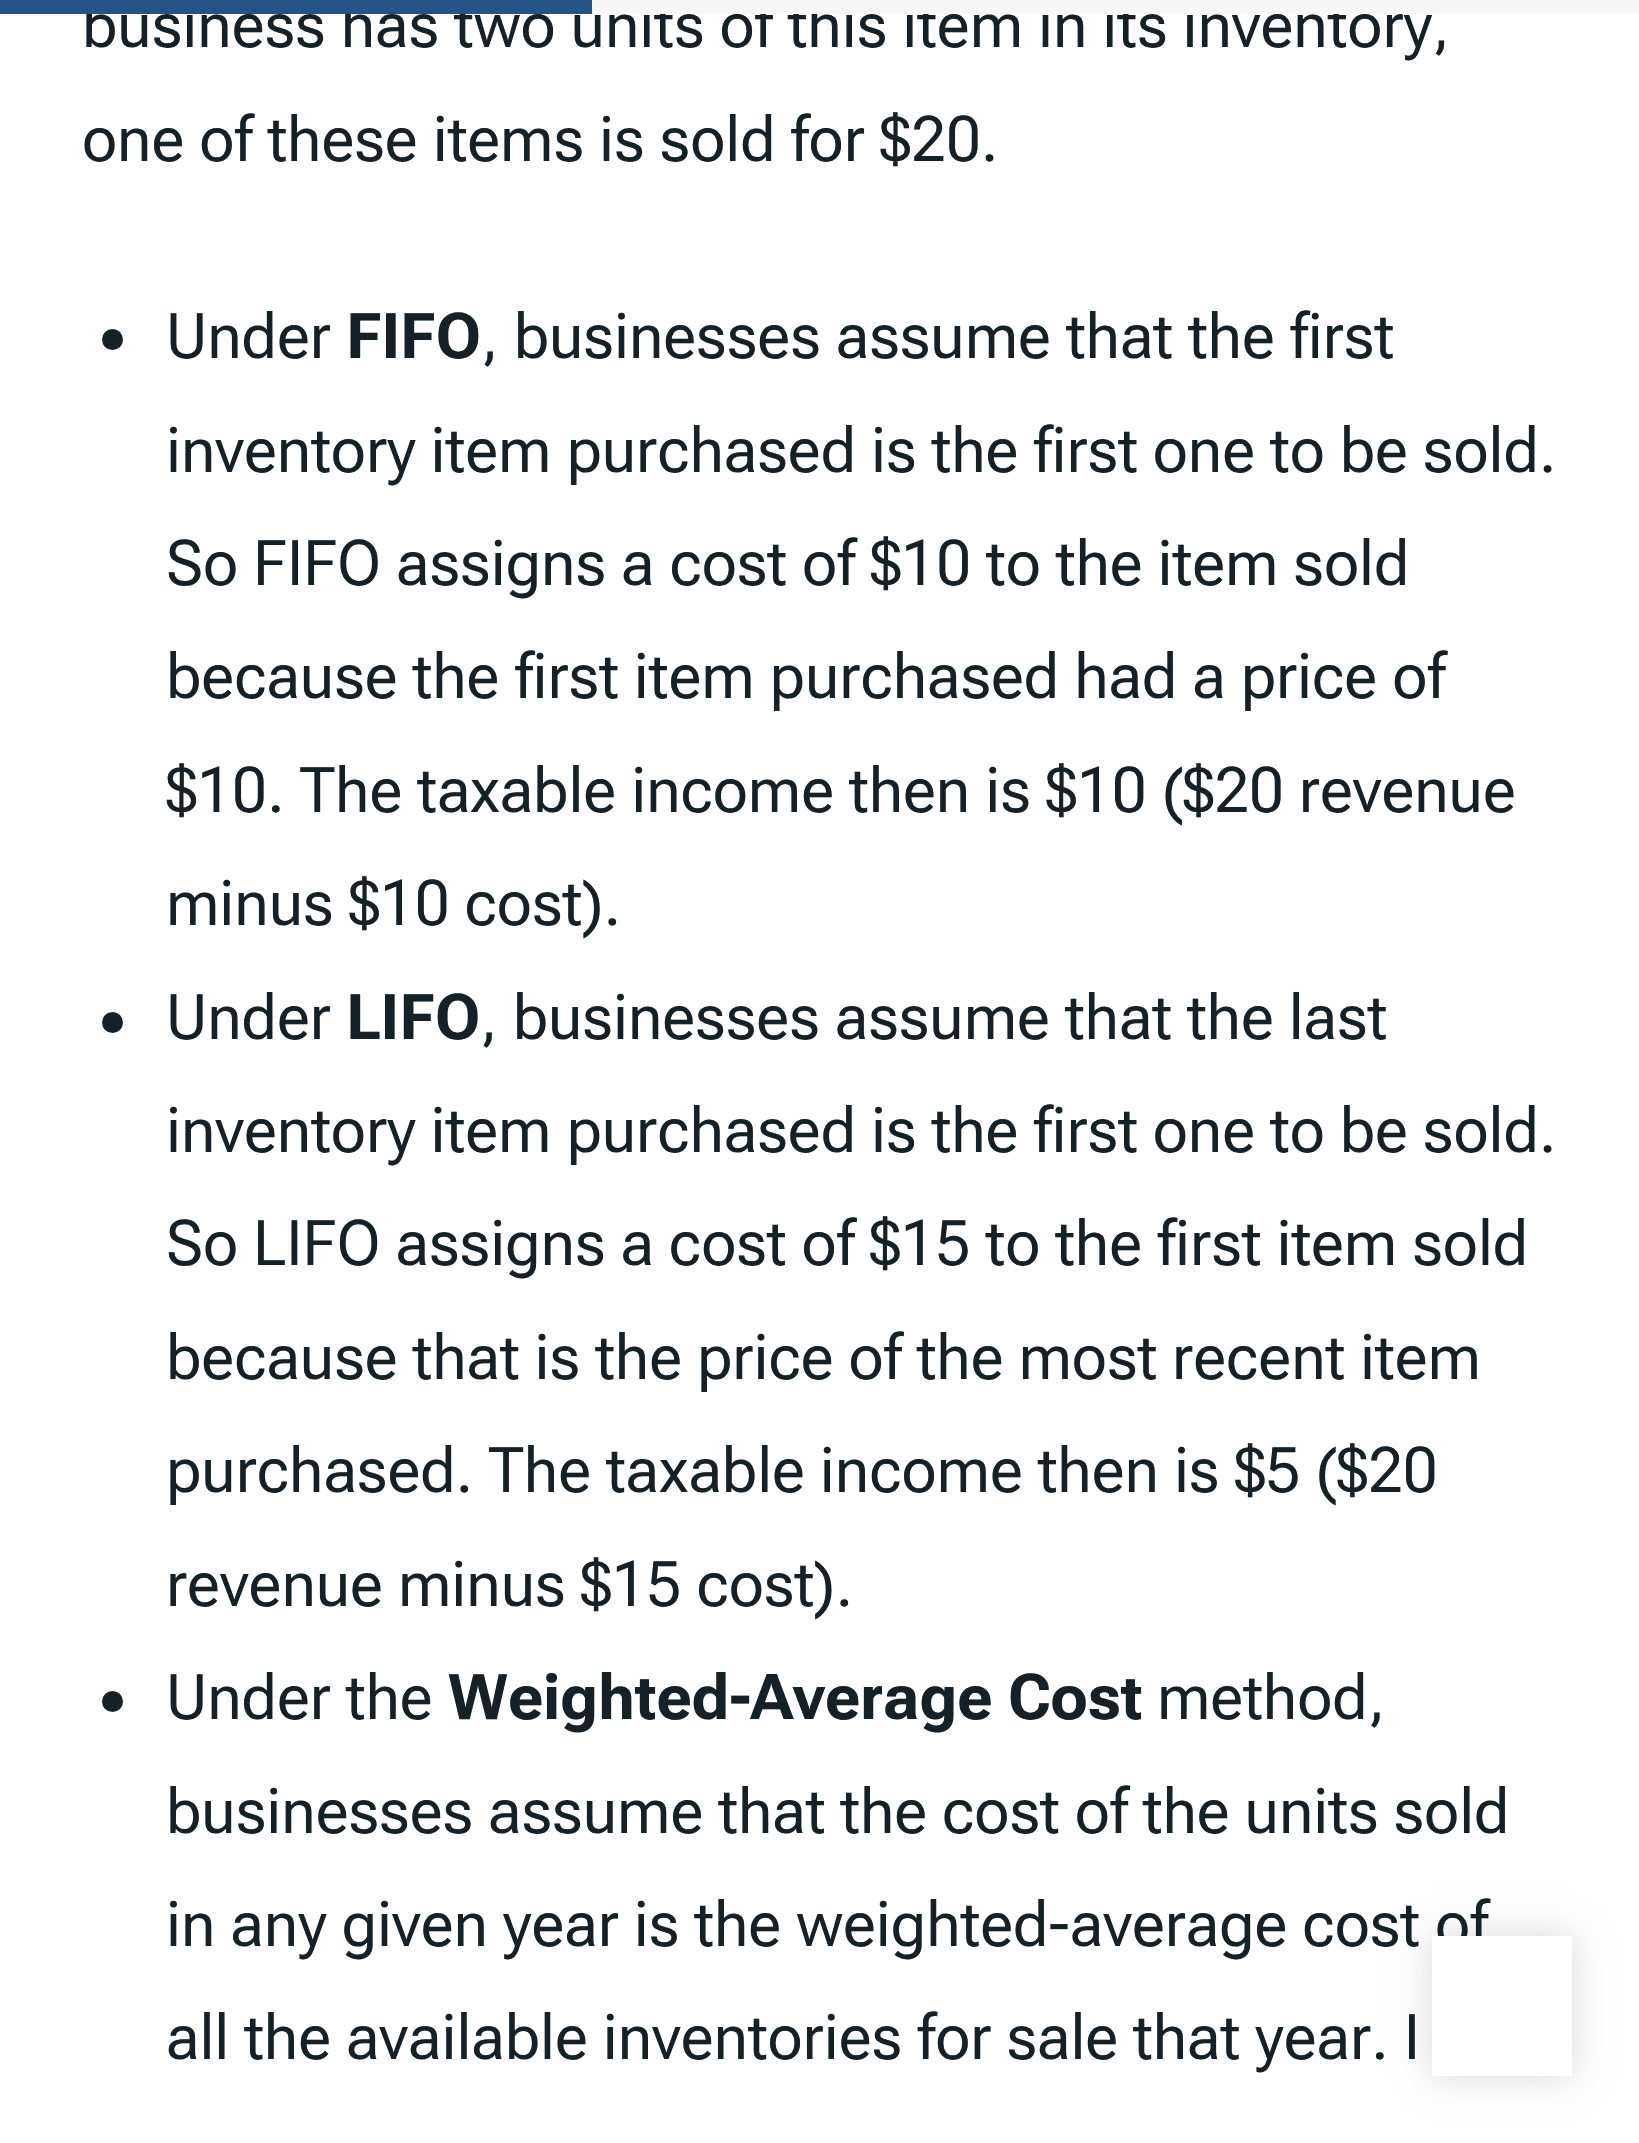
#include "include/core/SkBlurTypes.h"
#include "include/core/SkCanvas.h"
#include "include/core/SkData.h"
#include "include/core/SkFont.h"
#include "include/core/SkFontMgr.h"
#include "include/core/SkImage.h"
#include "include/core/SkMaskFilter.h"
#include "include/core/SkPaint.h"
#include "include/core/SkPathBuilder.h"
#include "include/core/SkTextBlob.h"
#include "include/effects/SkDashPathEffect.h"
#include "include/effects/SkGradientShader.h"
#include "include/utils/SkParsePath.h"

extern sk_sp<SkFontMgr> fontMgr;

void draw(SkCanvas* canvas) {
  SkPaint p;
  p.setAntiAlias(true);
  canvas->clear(SK_ColorWHITE);
  p.setColor(SkColorSetRGB(22, 33, 39));
  canvas->drawCircle(112.5f, 339.5f, 10.5f, p);
  canvas->drawCircle(112.5f, 1022.5f, 10.5f, p);
  canvas->drawCircle(112.5f, 1701.5f, 10.5f, p);
  p.setColor(SkColorSetARGB(38, 0, 0, 0));
  p.setMaskFilter(SkMaskFilter::MakeBlur(kNormal_SkBlurStyle, 17.5f));
  canvas->drawRect(SkRect::MakeLTRB(1432, 1936, 1572, 2076), p);
  p.setMaskFilter(nullptr);
  SkFont font1(fontMgr->matchFamilyStyle("Roboto Flex", SkFontStyle::Normal()), 63);
  font1.setSubpixel(true);
  p.setColor(SkColorSetRGB(22, 33, 39));
  canvas->drawString("business has two units of this item in its inventory,", 82, 47, font1, p);
  p.setColor(SkColorSetRGB(35, 84, 133));
  canvas->drawRect(SkRect::MakeLTRB(0, 0, 592, 14), p);
  p.setColor(SkColorSetRGB(247, 247, 247));
  canvas->drawRect(SkRect::MakeLTRB(592, 0, 1639, 14), p);
  p.setColor(SkColorSetRGB(22, 33, 39));
  canvas->drawString("one of these items is sold for $20.", 82, 161, font1, p);
  canvas->drawString("Under", 166, 358, font1, p);
  SkFont font2(fontMgr->matchFamilyStyle("Roboto Flex", SkFontStyle::Bold()), 63);
  font2.setSubpixel(true);
  canvas->drawString("FIFO", 346, 358, font2, p);
  canvas->drawString(", businesses assume that the first", 481, 358, font1, p);
  canvas->drawString("inventory item purchased is the first one to be sold.", 166, 472, font1, p);
  canvas->drawString("So FIFO assigns a cost of $10 to the item sold", 166, 585, font1, p);
  canvas->drawString("because the first item purchased had a price of", 166, 698, font1, p);
  canvas->drawString("$10. The taxable income then is $10 ($20 revenue", 166, 812, font1, p);
  canvas->drawString("minus $10 cost).", 166, 925, font1, p);
  canvas->drawString("Under", 166, 1039, font1, p);
  canvas->drawString("LIFO", 346, 1039, font2, p);
  canvas->drawString(", businesses assume that the last", 480, 1039, font1, p);
  canvas->drawString("inventory item purchased is the first one to be sold.", 166, 1152, font1, p);
  canvas->drawString("So LIFO assigns a cost of $15 to the first item sold", 166, 1265, font1, p);
  canvas->drawString("because that is the price of the most recent item", 166, 1379, font1, p);
  canvas->drawString("purchased. The taxable income then is $5 ($20", 166, 1492, font1, p);
  canvas->drawString("revenue minus $15 cost).", 166, 1606, font1, p);
  canvas->drawString("Under the", 166, 1719, font1, p);
  canvas->drawString("Weighted-Average Cost", 448, 1719, font2, p);
  canvas->drawString("method,", 1157, 1719, font1, p);
  canvas->drawString("businesses assume that the cost of the units sold", 166, 1833, font1, p);
  canvas->drawString("in any given year is the weighted-average cost of", 166, 1946, font1, p);
  canvas->drawString("all the available inventories for sale that year. I", 166, 2059, font1, p);
  p.setColor(SK_ColorWHITE);
  canvas->drawRect(SkRect::MakeLTRB(1432, 1936, 1572, 2076), p);
}
